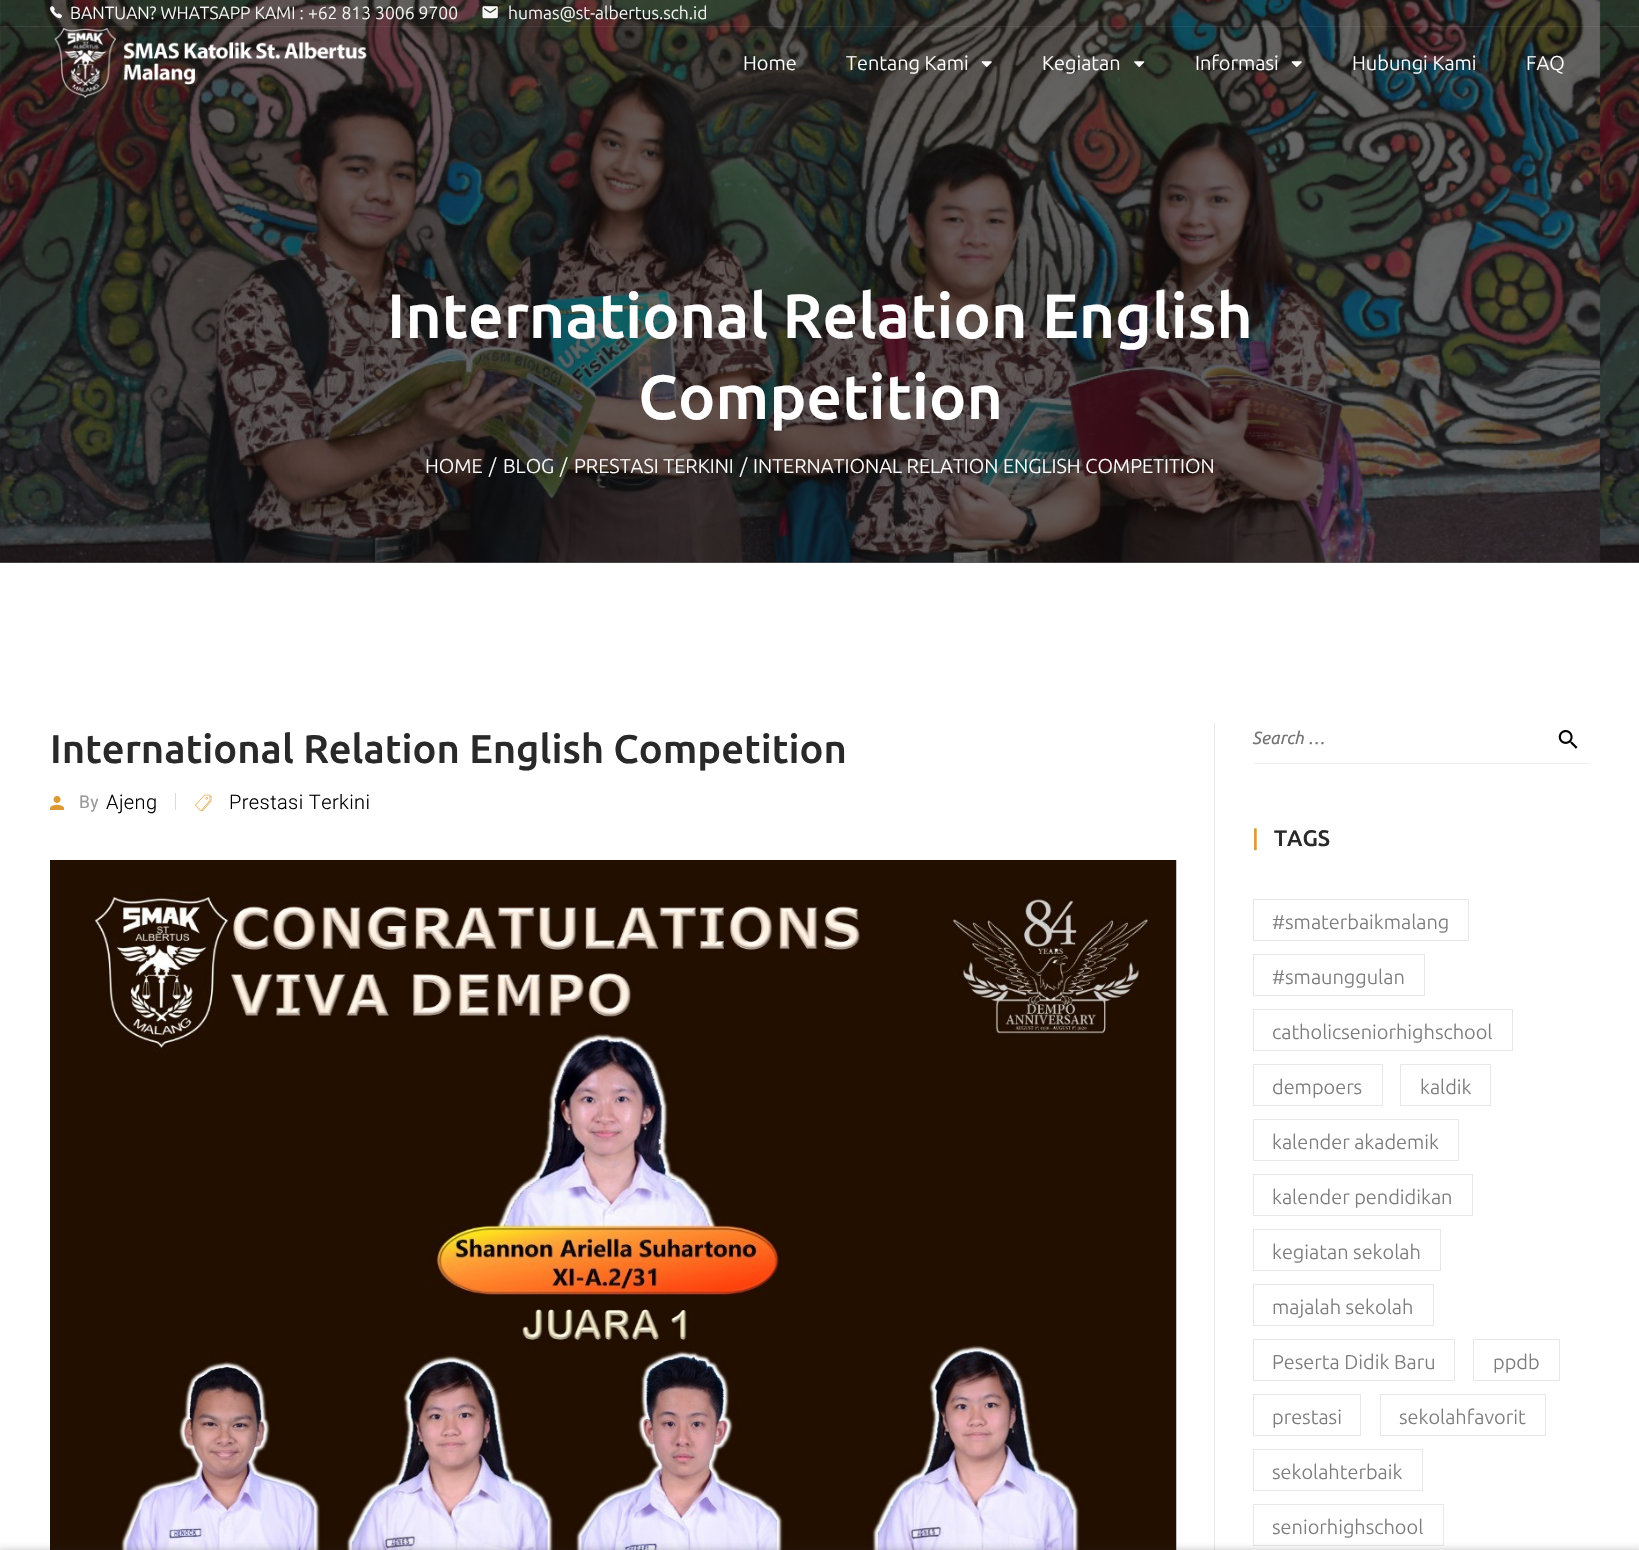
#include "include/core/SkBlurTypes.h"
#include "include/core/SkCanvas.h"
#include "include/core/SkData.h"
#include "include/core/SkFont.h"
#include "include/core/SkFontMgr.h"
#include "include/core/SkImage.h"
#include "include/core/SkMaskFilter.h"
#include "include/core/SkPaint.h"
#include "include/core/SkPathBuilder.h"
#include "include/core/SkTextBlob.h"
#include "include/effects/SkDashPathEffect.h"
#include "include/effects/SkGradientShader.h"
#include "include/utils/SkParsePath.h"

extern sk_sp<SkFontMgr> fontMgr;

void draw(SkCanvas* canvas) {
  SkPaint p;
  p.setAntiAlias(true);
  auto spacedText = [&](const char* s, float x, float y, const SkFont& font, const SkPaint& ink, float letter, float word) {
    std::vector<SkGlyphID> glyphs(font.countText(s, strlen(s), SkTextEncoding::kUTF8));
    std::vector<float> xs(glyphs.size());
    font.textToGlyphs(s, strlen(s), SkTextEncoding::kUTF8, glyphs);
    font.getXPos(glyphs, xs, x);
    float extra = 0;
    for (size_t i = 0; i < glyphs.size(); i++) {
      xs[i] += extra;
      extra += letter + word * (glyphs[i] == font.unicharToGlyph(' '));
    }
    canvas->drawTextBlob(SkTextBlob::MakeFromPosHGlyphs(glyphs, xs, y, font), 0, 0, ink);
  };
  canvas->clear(SK_ColorWHITE);
  p.setColor(SkColorSetRGB(100, 100, 100));
  canvas->drawRect(SkRect::MakeLTRB(0, 562, 1639, 563), p);
  canvas->drawImageRect(SkImages::DeferredFromEncodedData(SkData::MakeFromFileName("images/7.png")), SkRect::MakeLTRB(0, 0, 1639, 563), SkSamplingOptions());
  p.setColor(SkColorSetARGB(26, 183, 183, 183));
  canvas->drawRect(SkRect::MakeLTRB(0, 26, 1639, 27), p);
  canvas->drawImageRect(SkImages::DeferredFromEncodedData(SkData::MakeFromFileName("images/1.png")), SkRect::MakeLTRB(50, 6, 62, 19), SkSamplingOptions());
  canvas->drawImageRect(SkImages::DeferredFromEncodedData(SkData::MakeFromFileName("images/2.png")), SkRect::MakeLTRB(482, 6, 498, 19), SkSamplingOptions());
  canvas->drawImageRect(SkImages::DeferredFromEncodedData(SkData::MakeFromFileName("images/3.png")), SkRect::MakeLTRB(54, 28, 367, 98), SkSamplingOptions());
  canvas->drawImageRect(SkImages::DeferredFromEncodedData(SkData::MakeFromFileName("images/4.png")), SkRect::MakeLTRB(981, 61, 992, 67), SkSamplingOptions());
  canvas->drawImageRect(SkImages::DeferredFromEncodedData(SkData::MakeFromFileName("images/5.png")), SkRect::MakeLTRB(1134, 61, 1145, 67), SkSamplingOptions());
  canvas->drawImageRect(SkImages::DeferredFromEncodedData(SkData::MakeFromFileName("images/6.png")), SkRect::MakeLTRB(1291, 61, 1302, 67), SkSamplingOptions());
  p.setColor(SkColorSetRGB(231, 231, 231));
  canvas->drawRect(SkRect::MakeLTRB(1214, 723, 1215, 1550), p);
  canvas->drawImageRect(SkImages::DeferredFromEncodedData(SkData::MakeFromFileName("images/8.png")), SkRect::MakeLTRB(50, 796, 65, 810), SkSamplingOptions());
  p.setColor(SkColorSetRGB(217, 217, 217));
  canvas->drawRect(SkRect::MakeLTRB(175, 793, 176, 810), p);
  canvas->drawImageRect(SkImages::DeferredFromEncodedData(SkData::MakeFromFileName("images/9.png")), SkRect::MakeLTRB(195, 794, 212, 812), SkSamplingOptions());
  canvas->drawImageRect(SkImages::DeferredFromEncodedData(SkData::MakeFromFileName("images/10.png")), SkRect::MakeLTRB(50, 860, 1177, 1550), SkSamplingOptions());
  p.setColor(SkColorSetRGB(238, 238, 238));
  canvas->drawRect(SkRect::MakeLTRB(1253, 763, 1590, 764), p);
  canvas->drawImageRect(SkImages::DeferredFromEncodedData(SkData::MakeFromFileName("images/11.png")), SkRect::MakeLTRB(1558, 730, 1578, 749), SkSamplingOptions());
  p.setStyle(SkPaint::kStroke_Style);
  p.setStrokeWidth(1);
  p.setColor(SkColorSetRGB(231, 231, 231));
  canvas->drawRect(SkRect::MakeLTRB(1253.5f, 899.5f, 1468.5f, 940.5f), p);
  canvas->drawRect(SkRect::MakeLTRB(1253.5f, 954.5f, 1424.5f, 995.5f), p);
  canvas->drawRect(SkRect::MakeLTRB(1253.5f, 1009.5f, 1512.5f, 1050.5f), p);
  canvas->drawRect(SkRect::MakeLTRB(1253.5f, 1064.5f, 1382.5f, 1105.5f), p);
  canvas->drawRect(SkRect::MakeLTRB(1400.5f, 1064.5f, 1490.5f, 1105.5f), p);
  canvas->drawRect(SkRect::MakeLTRB(1253.5f, 1119.5f, 1458.5f, 1160.5f), p);
  canvas->drawRect(SkRect::MakeLTRB(1253.5f, 1174.5f, 1472.5f, 1215.5f), p);
  canvas->drawRect(SkRect::MakeLTRB(1253.5f, 1229.5f, 1440.5f, 1270.5f), p);
  canvas->drawRect(SkRect::MakeLTRB(1253.5f, 1284.5f, 1433.5f, 1325.5f), p);
  canvas->drawRect(SkRect::MakeLTRB(1253.5f, 1339.5f, 1454.5f, 1380.5f), p);
  canvas->drawRect(SkRect::MakeLTRB(1473.5f, 1339.5f, 1559.5f, 1380.5f), p);
  canvas->drawRect(SkRect::MakeLTRB(1253.5f, 1394.5f, 1360.5f, 1435.5f), p);
  canvas->drawRect(SkRect::MakeLTRB(1380.5f, 1394.5f, 1545.5f, 1435.5f), p);
  canvas->drawRect(SkRect::MakeLTRB(1253.5f, 1449.5f, 1422.5f, 1490.5f), p);
  canvas->drawRect(SkRect::MakeLTRB(1253.5f, 1504.5f, 1443.5f, 1545.5f), p);
  p.setStyle(SkPaint::kFill_Style);
  p.setColor(SkColorSetARGB(102, 42, 42, 42));
  p.setMaskFilter(SkMaskFilter::MakeBlur(kNormal_SkBlurStyle, 4));
  canvas->drawRect(SkRect::MakeLTRB(-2, 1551, 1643, 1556), p);
  p.setMaskFilter(nullptr);
  SkFont font1(fontMgr->matchFamilyStyle("Ubuntu", SkFontStyle(300, SkFontStyle::kNormal_Width, SkFontStyle::kUpright_Slant)), 17.5f);
  font1.setSubpixel(true);
  p.setColor(SkColorSetRGB(247, 247, 247));
  canvas->drawString("BANTUAN? WHATSAPP KAMI : +62 813 3006 9700", 70, 19, font1, p);
  canvas->drawString("humas@st-albertus.sch.id", 508, 19, font1, p);
  SkFont font2(fontMgr->matchFamilyStyle("Ubuntu", SkFontStyle(300, SkFontStyle::kNormal_Width, SkFontStyle::kUpright_Slant)), 20);
  font2.setSubpixel(true);
  p.setColor(SK_ColorWHITE);
  canvas->drawString("Home", 743, 70, font2, p);
  canvas->drawString("Tentang Kami", 846, 70, font2, p);
  canvas->drawString("Kegiatan", 1042, 70, font2, p);
  canvas->drawString("Informasi", 1195, 70, font2, p);
  canvas->drawString("Hubungi Kami", 1352, 70, font2, p);
  canvas->drawString("FAQ", 1526, 70, font2, p);
  SkFont font3(fontMgr->matchFamilyStyle("Ubuntu", SkFontStyle(500, SkFontStyle::kNormal_Width, SkFontStyle::kUpright_Slant)), 62.5f);
  font3.setSubpixel(true);
  canvas->drawString("International Relation English", 387, 338, font3, p);
  canvas->drawString("Competition", 638, 419, font3, p);
  canvas->drawString("HOME", 425, 473, font2, p);
  canvas->drawString("/", 489, 473, font2, p);
  canvas->drawString("BLOG", 503, 473, font2, p);
  canvas->drawString("/", 560, 473, font2, p);
  canvas->drawString("PRESTASI TERKINI", 574, 473, font2, p);
  canvas->drawString("/", 740, 473, font2, p);
  canvas->drawString("INTERNATIONAL RELATION ENGLISH COMPETITION", 753, 473, font2, p);
  SkFont font4(fontMgr->matchFamilyStyle("Ubuntu", SkFontStyle(500, SkFontStyle::kNormal_Width, SkFontStyle::kUpright_Slant)), 40);
  font4.setSubpixel(true);
  p.setColor(SkColorSetRGB(41, 41, 41));
  canvas->drawString("International Relation English Competition", 50, 763, font4, p);
  SkFont font5(fontMgr->matchFamilyStyle("Roboto", SkFontStyle::Normal()), 17.5f);
  font5.setSubpixel(true);
  p.setColor(SkColorSetRGB(153, 153, 153));
  spacedText("By", 79, 808, font5, p, 0.4f, 0);
  SkFont font6(fontMgr->matchFamilyStyle("Roboto", SkFontStyle(300, SkFontStyle::kNormal_Width, SkFontStyle::kUpright_Slant)), 20);
  font6.setSubpixel(true);
  p.setColor(SK_ColorBLACK);
  spacedText("Ajeng", 106, 809, font6, p, 0.4f, 0);
  spacedText("Prestasi Terkini", 229, 809, font6, p, 0.4f, 0);
  SkFont font7(fontMgr->matchFamilyStyle("Ubuntu", SkFontStyle::Italic()), 17.5f);
  font7.setSubpixel(true);
  p.setColor(SkColorSetRGB(117, 117, 117));
  canvas->drawString("Search …", 1252, 744, font7, p);
  SkFont font8(fontMgr->matchFamilyStyle("Ubuntu", SkFontStyle(500, SkFontStyle::kNormal_Width, SkFontStyle::kUpright_Slant)), 22.5f);
  font8.setSubpixel(true);
  p.setColor(SkColorSetRGB(221, 153, 51));
  canvas->drawString("|", 1252, 846, font8, p);
  p.setColor(SkColorSetRGB(41, 41, 41));
  canvas->drawString("TAGS", 1274, 846, font8, p);
  p.setColor(SkColorSetRGB(124, 124, 124));
  canvas->drawString("#smaterbaikmalang", 1272, 929, font2, p);
  canvas->drawString("#smaunggulan", 1272, 984, font2, p);
  canvas->drawString("catholicseniorhighschool", 1272, 1039, font2, p);
  canvas->drawString("dempoers", 1272, 1094, font2, p);
  canvas->drawString("kaldik", 1420, 1094, font2, p);
  canvas->drawString("kalender akademik", 1272, 1149, font2, p);
  canvas->drawString("kalender pendidikan", 1272, 1204, font2, p);
  canvas->drawString("kegiatan sekolah", 1272, 1259, font2, p);
  canvas->drawString("majalah sekolah", 1272, 1314, font2, p);
  canvas->drawString("Peserta Didik Baru", 1272, 1369, font2, p);
  canvas->drawString("ppdb", 1493, 1369, font2, p);
  canvas->drawString("prestasi", 1272, 1424, font2, p);
  canvas->drawString("sekolahfavorit", 1399, 1424, font2, p);
  canvas->drawString("sekolahterbaik", 1272, 1479, font2, p);
  canvas->drawString("seniorhighschool", 1272, 1534, font2, p);
}
